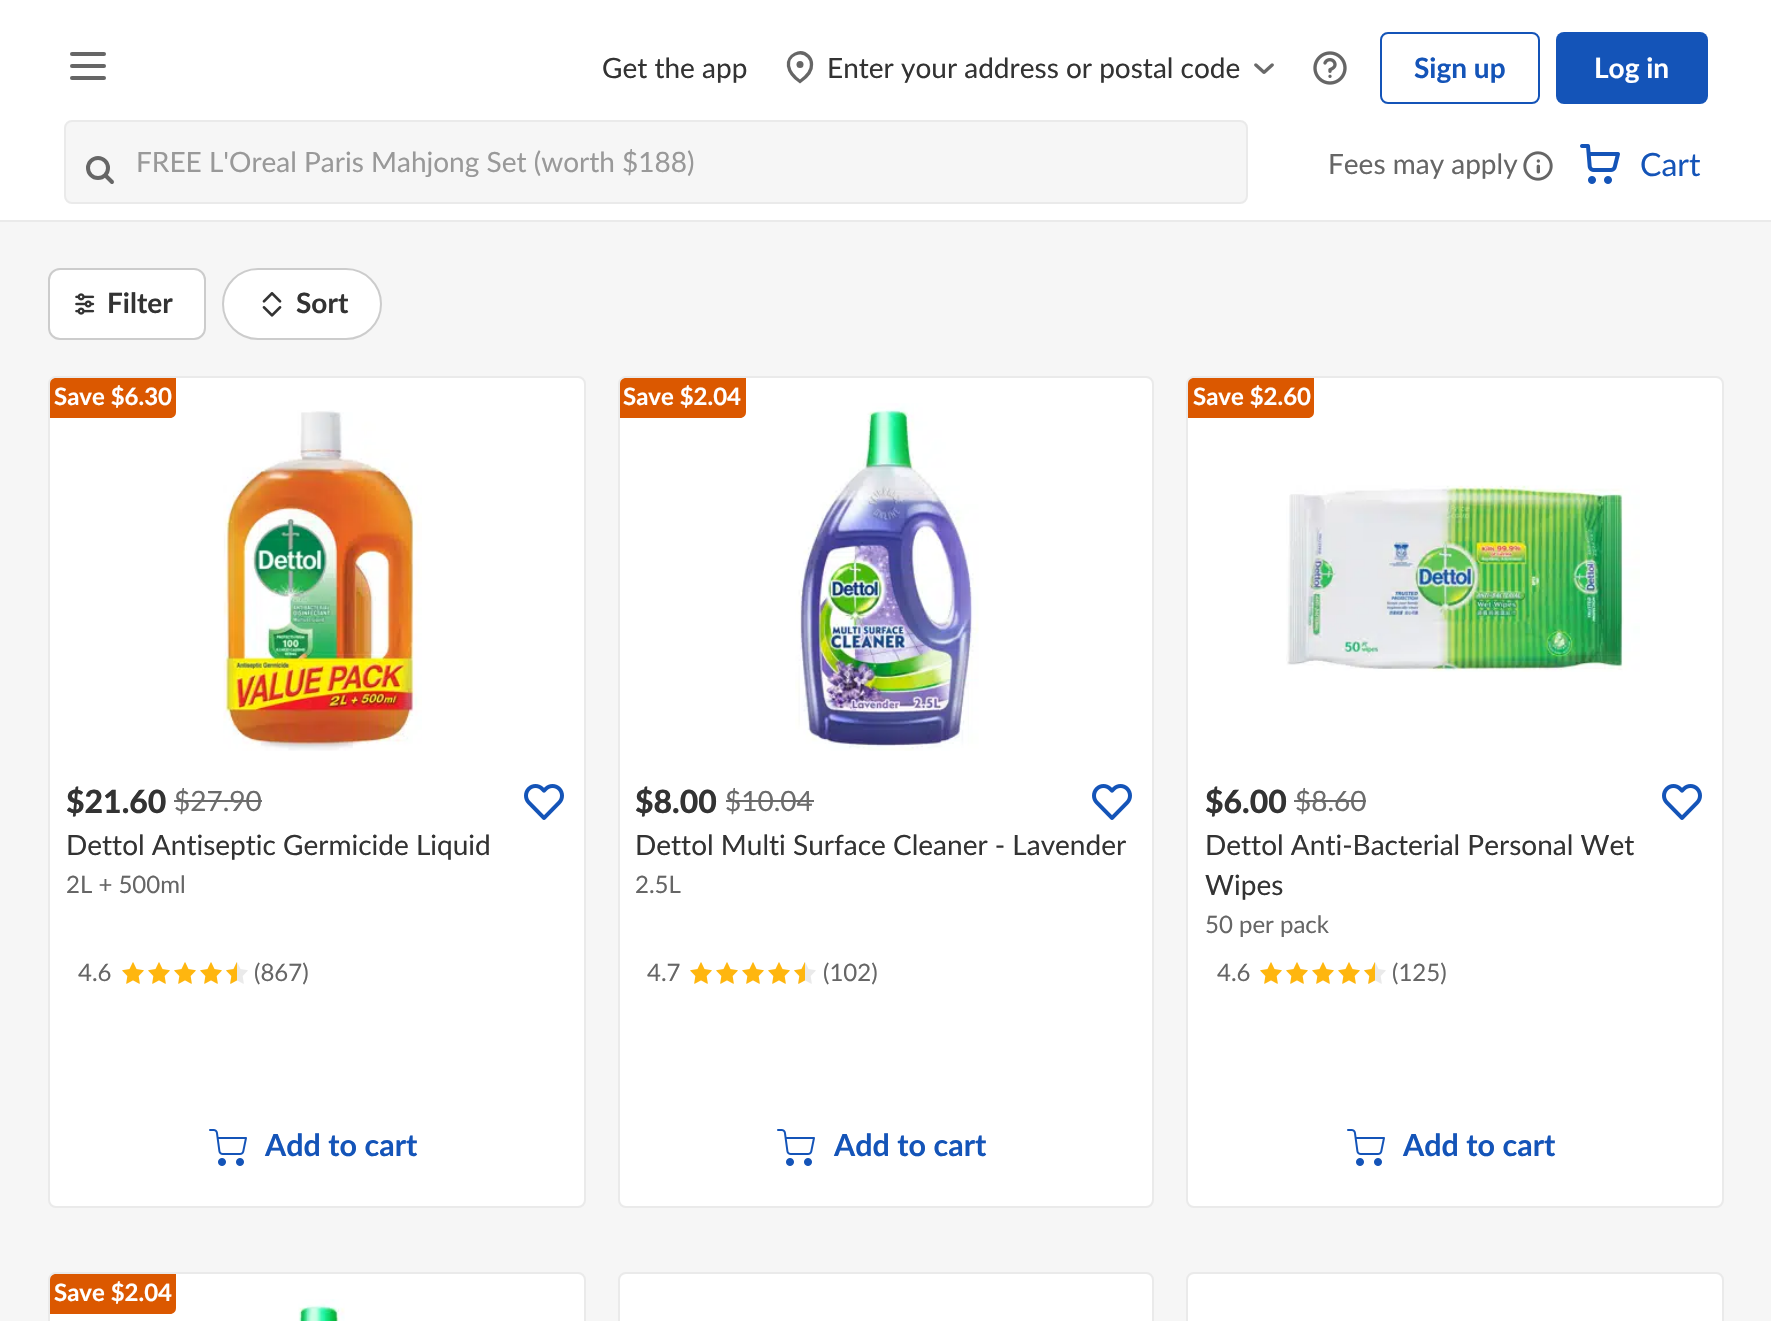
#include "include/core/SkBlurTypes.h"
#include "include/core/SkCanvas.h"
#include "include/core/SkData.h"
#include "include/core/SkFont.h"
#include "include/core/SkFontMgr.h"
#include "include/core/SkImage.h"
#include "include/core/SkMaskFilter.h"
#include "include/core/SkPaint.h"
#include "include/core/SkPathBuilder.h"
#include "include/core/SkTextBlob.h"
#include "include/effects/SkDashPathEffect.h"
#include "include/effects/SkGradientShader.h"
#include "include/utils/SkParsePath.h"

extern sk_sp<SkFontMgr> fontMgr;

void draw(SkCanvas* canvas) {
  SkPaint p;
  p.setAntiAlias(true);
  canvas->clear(SkColorSetRGB(246, 246, 246));
  p.setColor(SK_ColorWHITE);
  canvas->drawRect(SkRect::MakeLTRB(0, 0, 1771, 220), p);
  p.setColor(SkColorSetRGB(234, 234, 234));
  canvas->drawRect(SkRect::MakeLTRB(0, 220, 1771, 222), p);
  p.setColor(SkColorSetRGB(102, 102, 102));
  canvas->drawRoundRect(SkRect::MakeLTRB(70, 52, 106, 56), 2, 2, p);
  canvas->drawRoundRect(SkRect::MakeLTRB(70, 64, 106, 68), 2, 2, p);
  canvas->drawRoundRect(SkRect::MakeLTRB(70, 76, 106, 80), 2, 2, p);
  p.setStyle(SkPaint::kStroke_Style);
  p.setStrokeWidth(3.3f);
  canvas->drawPath(SkPathBuilder().moveTo(800, 81.5f).cubicTo(805, 78, 812, 71.5f, 811.5f, 64.5f).cubicTo(811.5f, 61.5f, 810.5f, 58.5f, 808.5f, 56.5f).cubicTo(800.5f, 48.5f, 787, 55, 788.5f, 66).cubicTo(789.5f, 72.5f, 795, 78, 800, 81.5f).close().detach(), p);
  p.setStyle(SkPaint::kFill_Style);
  canvas->drawCircle(800, 64.5f, 3.5f, p);
  canvas->drawImageRect(SkImages::DeferredFromEncodedData(SkData::MakeFromFileName("images/1.png")), SkRect::MakeLTRB(1254, 63, 1274, 74), SkSamplingOptions());
  canvas->drawImageRect(SkImages::DeferredFromEncodedData(SkData::MakeFromFileName("images/2.png")), SkRect::MakeLTRB(1313, 51, 1347, 85), SkSamplingOptions());
  p.setStyle(SkPaint::kStroke_Style);
  p.setStrokeWidth(2);
  p.setColor(SkColorSetRGB(20, 84, 184));
  canvas->drawRoundRect(SkRect::MakeLTRB(1381, 33, 1539, 103), 7, 7, p);
  p.setStyle(SkPaint::kFill_Style);
  canvas->drawRoundRect(SkRect::MakeLTRB(1556, 32, 1708, 104), 8, 8, p);
  p.setColor(SkColorSetRGB(246, 246, 246));
  canvas->drawRoundRect(SkRect::MakeLTRB(65, 121, 1247, 203), 7, 7, p);
  p.setStyle(SkPaint::kStroke_Style);
  p.setColor(SkColorSetRGB(234, 234, 234));
  canvas->drawRoundRect(SkRect::MakeLTRB(65, 121, 1247, 203), 7, 7, p);
  p.setStrokeWidth(4);
  p.setColor(SkColorSetRGB(102, 102, 102));
  canvas->drawCircle(98, 168, 10, p);
  p.setStrokeCap(SkPaint::kRound_Cap);
  p.setStrokeJoin(SkPaint::kRound_Join);
  canvas->drawPath(SkPathBuilder().moveTo(112, 182).lineTo(106, 176).detach(), p);
  canvas->drawImageRect(SkImages::DeferredFromEncodedData(SkData::MakeFromFileName("images/3.png")), SkRect::MakeLTRB(1523, 151, 1553, 181), SkSamplingOptions());
  canvas->drawImageRect(SkImages::DeferredFromEncodedData(SkData::MakeFromFileName("images/4.png")), SkRect::MakeLTRB(1580, 144, 1620, 184), SkSamplingOptions());
  p.setStyle(SkPaint::kFill_Style);
  p.setColor(SK_ColorWHITE);
  canvas->drawRoundRect(SkRect::MakeLTRB(49, 269, 205, 339), 11, 11, p);
  p.setStyle(SkPaint::kStroke_Style);
  p.setStrokeWidth(2);
  p.setStrokeCap(SkPaint::kButt_Cap);
  p.setStrokeJoin(SkPaint::kMiter_Join);
  p.setColor(SkColorSetRGB(204, 204, 204));
  canvas->drawRoundRect(SkRect::MakeLTRB(49, 269, 205, 339), 11, 11, p);
  canvas->drawImageRect(SkImages::DeferredFromEncodedData(SkData::MakeFromFileName("images/5.png")), SkRect::MakeLTRB(75, 293, 95, 315), SkSamplingOptions());
  p.setStyle(SkPaint::kFill_Style);
  p.setColor(SK_ColorWHITE);
  canvas->drawRoundRect(SkRect::MakeLTRB(223, 269, 381, 339), 35, 35, p);
  p.setStyle(SkPaint::kStroke_Style);
  p.setColor(SkColorSetRGB(204, 204, 204));
  canvas->drawRoundRect(SkRect::MakeLTRB(223, 269, 381, 339), 35, 35, p);
  canvas->drawImageRect(SkImages::DeferredFromEncodedData(SkData::MakeFromFileName("images/6.png")), SkRect::MakeLTRB(262, 292, 282, 317), SkSamplingOptions());
  p.setStyle(SkPaint::kFill_Style);
  p.setColor(SK_ColorWHITE);
  canvas->drawRoundRect(SkRect::MakeLTRB(49, 377, 585, 1207), 7, 7, p);
  p.setStyle(SkPaint::kStroke_Style);
  p.setColor(SkColorSetRGB(234, 234, 234));
  canvas->drawRoundRect(SkRect::MakeLTRB(49, 377, 585, 1207), 7, 7, p);
  p.setStyle(SkPaint::kFill_Style);
  p.setColor(SkColorSetRGB(219, 88, 0));
  canvas->drawPath(SkPathBuilder().moveTo(56, 378).lineTo(176, 378).lineTo(176, 412).cubicTo(176, 415.5f, 173.5f, 418, 170, 418).lineTo(50, 418).lineTo(50, 384).cubicTo(50, 380.5f, 52.5f, 378, 56, 378).close().detach(), p);
  canvas->drawImageRect(SkImages::DeferredFromEncodedData(SkData::MakeFromFileName("images/7.png")), SkRect::MakeLTRB(223, 410, 422, 751), SkSamplingOptions());
  p.setColor(SkColorSetRGB(108, 108, 108));
  canvas->drawRect(SkRect::MakeLTRB(174, 800, 262, 802), p);
  canvas->drawImageRect(SkImages::DeferredFromEncodedData(SkData::MakeFromFileName("images/8.png")), SkRect::MakeLTRB(524, 784, 564, 820), SkSamplingOptions());
  canvas->drawImageRect(SkImages::DeferredFromEncodedData(SkData::MakeFromFileName("images/9.png")), SkRect::MakeLTRB(122, 962, 144, 984), SkSamplingOptions());
  canvas->drawImageRect(SkImages::DeferredFromEncodedData(SkData::MakeFromFileName("images/9.png")), SkRect::MakeLTRB(148, 962, 170, 984), SkSamplingOptions());
  canvas->drawImageRect(SkImages::DeferredFromEncodedData(SkData::MakeFromFileName("images/9.png")), SkRect::MakeLTRB(174, 962, 196, 984), SkSamplingOptions());
  canvas->drawImageRect(SkImages::DeferredFromEncodedData(SkData::MakeFromFileName("images/9.png")), SkRect::MakeLTRB(200, 962, 222, 984), SkSamplingOptions());
  canvas->drawImageRect(SkImages::DeferredFromEncodedData(SkData::MakeFromFileName("images/10.png")), SkRect::MakeLTRB(226, 962, 248, 984), SkSamplingOptions());
  canvas->drawImageRect(SkImages::DeferredFromEncodedData(SkData::MakeFromFileName("images/11.png")), SkRect::MakeLTRB(209, 1129, 247, 1166), SkSamplingOptions());
  p.setColor(SK_ColorWHITE);
  canvas->drawRoundRect(SkRect::MakeLTRB(619, 377, 1153, 1207), 7, 7, p);
  p.setStyle(SkPaint::kStroke_Style);
  p.setColor(SkColorSetRGB(234, 234, 234));
  canvas->drawRoundRect(SkRect::MakeLTRB(619, 377, 1153, 1207), 7, 7, p);
  p.setStyle(SkPaint::kFill_Style);
  p.setColor(SkColorSetRGB(219, 88, 0));
  canvas->drawPath(SkPathBuilder().moveTo(626, 378).lineTo(746, 378).lineTo(746, 412).cubicTo(746, 415.5f, 743.5f, 418, 740, 418).lineTo(620, 418).lineTo(620, 384).cubicTo(620, 380.5f, 622.5f, 378, 626, 378).close().detach(), p);
  canvas->drawImageRect(SkImages::DeferredFromEncodedData(SkData::MakeFromFileName("images/12.png")), SkRect::MakeLTRB(795, 403, 979, 751), SkSamplingOptions());
  p.setColor(SkColorSetRGB(108, 108, 108));
  canvas->drawRect(SkRect::MakeLTRB(726, 800, 814, 802), p);
  canvas->drawImageRect(SkImages::DeferredFromEncodedData(SkData::MakeFromFileName("images/8.png")), SkRect::MakeLTRB(1092, 784, 1132, 820), SkSamplingOptions());
  canvas->drawImageRect(SkImages::DeferredFromEncodedData(SkData::MakeFromFileName("images/9.png")), SkRect::MakeLTRB(690, 962, 712, 984), SkSamplingOptions());
  canvas->drawImageRect(SkImages::DeferredFromEncodedData(SkData::MakeFromFileName("images/9.png")), SkRect::MakeLTRB(716, 962, 738, 984), SkSamplingOptions());
  canvas->drawImageRect(SkImages::DeferredFromEncodedData(SkData::MakeFromFileName("images/9.png")), SkRect::MakeLTRB(742, 962, 764, 984), SkSamplingOptions());
  canvas->drawImageRect(SkImages::DeferredFromEncodedData(SkData::MakeFromFileName("images/9.png")), SkRect::MakeLTRB(768, 962, 790, 984), SkSamplingOptions());
  canvas->drawImageRect(SkImages::DeferredFromEncodedData(SkData::MakeFromFileName("images/10.png")), SkRect::MakeLTRB(794, 962, 816, 984), SkSamplingOptions());
  canvas->drawImageRect(SkImages::DeferredFromEncodedData(SkData::MakeFromFileName("images/11.png")), SkRect::MakeLTRB(777, 1129, 815, 1166), SkSamplingOptions());
  p.setColor(SK_ColorWHITE);
  canvas->drawRoundRect(SkRect::MakeLTRB(1187, 377, 1723, 1207), 7, 7, p);
  p.setStyle(SkPaint::kStroke_Style);
  p.setColor(SkColorSetRGB(234, 234, 234));
  canvas->drawRoundRect(SkRect::MakeLTRB(1187, 377, 1723, 1207), 7, 7, p);
  p.setStyle(SkPaint::kFill_Style);
  p.setColor(SkColorSetRGB(219, 88, 0));
  canvas->drawPath(SkPathBuilder().moveTo(1194, 378).lineTo(1314, 378).lineTo(1314, 412).cubicTo(1314, 415.5f, 1311.5f, 418, 1308, 418).lineTo(1188, 418).lineTo(1188, 384).cubicTo(1188, 380.5f, 1190.5f, 378, 1194, 378).close().detach(), p);
  canvas->drawImageRect(SkImages::DeferredFromEncodedData(SkData::MakeFromFileName("images/13.png")), SkRect::MakeLTRB(1286, 485, 1640, 672), SkSamplingOptions());
  p.setColor(SkColorSetRGB(108, 108, 108));
  canvas->drawRect(SkRect::MakeLTRB(1294, 800, 1366, 802), p);
  canvas->drawImageRect(SkImages::DeferredFromEncodedData(SkData::MakeFromFileName("images/8.png")), SkRect::MakeLTRB(1662, 784, 1702, 820), SkSamplingOptions());
  canvas->drawImageRect(SkImages::DeferredFromEncodedData(SkData::MakeFromFileName("images/9.png")), SkRect::MakeLTRB(1260, 962, 1282, 984), SkSamplingOptions());
  canvas->drawImageRect(SkImages::DeferredFromEncodedData(SkData::MakeFromFileName("images/9.png")), SkRect::MakeLTRB(1286, 962, 1308, 984), SkSamplingOptions());
  canvas->drawImageRect(SkImages::DeferredFromEncodedData(SkData::MakeFromFileName("images/9.png")), SkRect::MakeLTRB(1312, 962, 1334, 984), SkSamplingOptions());
  canvas->drawImageRect(SkImages::DeferredFromEncodedData(SkData::MakeFromFileName("images/9.png")), SkRect::MakeLTRB(1338, 962, 1360, 984), SkSamplingOptions());
  canvas->drawImageRect(SkImages::DeferredFromEncodedData(SkData::MakeFromFileName("images/10.png")), SkRect::MakeLTRB(1364, 962, 1386, 984), SkSamplingOptions());
  canvas->drawImageRect(SkImages::DeferredFromEncodedData(SkData::MakeFromFileName("images/11.png")), SkRect::MakeLTRB(1347, 1129, 1385, 1166), SkSamplingOptions());
  p.setColor(SK_ColorWHITE);
  canvas->drawRoundRect(SkRect::MakeLTRB(49, 1273, 585, 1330), 7, 7, p);
  p.setStyle(SkPaint::kStroke_Style);
  p.setColor(SkColorSetRGB(234, 234, 234));
  canvas->drawRoundRect(SkRect::MakeLTRB(49, 1273, 585, 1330), 7, 7, p);
  p.setStyle(SkPaint::kFill_Style);
  p.setColor(SkColorSetRGB(219, 88, 0));
  canvas->drawPath(SkPathBuilder().moveTo(56, 1274).lineTo(176, 1274).lineTo(176, 1308).cubicTo(176, 1311.5f, 173.5f, 1314, 170, 1314).lineTo(50, 1314).lineTo(50, 1280).cubicTo(50, 1276.5f, 52.5f, 1274, 56, 1274).close().detach(), p);
  canvas->drawImageRect(SkImages::DeferredFromEncodedData(SkData::MakeFromFileName("images/14.png")), SkRect::MakeLTRB(298, 1299, 345, 1321), SkSamplingOptions());
  p.setColor(SK_ColorWHITE);
  canvas->drawRoundRect(SkRect::MakeLTRB(619, 1273, 1153, 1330), 7, 7, p);
  p.setStyle(SkPaint::kStroke_Style);
  p.setColor(SkColorSetRGB(234, 234, 234));
  canvas->drawRoundRect(SkRect::MakeLTRB(619, 1273, 1153, 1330), 7, 7, p);
  p.setStyle(SkPaint::kFill_Style);
  p.setColor(SK_ColorWHITE);
  canvas->drawRoundRect(SkRect::MakeLTRB(1187, 1273, 1723, 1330), 7, 7, p);
  p.setStyle(SkPaint::kStroke_Style);
  p.setColor(SkColorSetRGB(234, 234, 234));
  canvas->drawRoundRect(SkRect::MakeLTRB(1187, 1273, 1723, 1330), 7, 7, p);
  SkFont font1(fontMgr->matchFamilyStyle("Lato", SkFontStyle::Normal()), 28);
  font1.setSubpixel(true);
  p.setStyle(SkPaint::kFill_Style);
  p.setColor(SkColorSetRGB(51, 51, 51));
  canvas->drawString("Get the app", 602, 78, font1, p);
  canvas->drawString("Enter your address or postal code", 827, 78, font1, p);
  SkFont font2(fontMgr->matchFamilyStyle("Lato", SkFontStyle::Bold()), 28);
  font2.setSubpixel(true);
  p.setColor(SkColorSetRGB(20, 84, 184));
  canvas->drawString("Sign up", 1414, 78, font2, p);
  p.setColor(SK_ColorWHITE);
  canvas->drawString("Log in", 1594, 78, font2, p);
  p.setColor(SkColorSetRGB(153, 153, 153));
  canvas->drawString("FREE L'Oreal Paris Mahjong Set (worth $188)", 136, 172, font1, p);
  p.setColor(SkColorSetRGB(102, 102, 102));
  canvas->drawString("Fees may apply", 1328, 174, font1, p);
  SkFont font3(fontMgr->matchFamilyStyle("Lato", SkFontStyle::Normal()), 32);
  font3.setSubpixel(true);
  p.setColor(SkColorSetRGB(20, 84, 184));
  canvas->drawString("Cart", 1640, 176, font3, p);
  p.setColor(SkColorSetRGB(51, 51, 51));
  canvas->drawString("Filter", 107, 313, font2, p);
  canvas->drawString("Sort", 296, 313, font2, p);
  SkFont font4(fontMgr->matchFamilyStyle("Lato", SkFontStyle::Bold()), 24);
  font4.setSubpixel(true);
  p.setColor(SK_ColorWHITE);
  canvas->drawString("Save $6.30", 54, 405, font4, p);
  SkFont font5(fontMgr->matchFamilyStyle("Lato", SkFontStyle(900, SkFontStyle::kNormal_Width, SkFontStyle::kUpright_Slant)), 32);
  font5.setSubpixel(true);
  p.setColor(SkColorSetRGB(51, 51, 51));
  canvas->drawString("$21.60", 66, 813, font5, p);
  p.setColor(SkColorSetRGB(108, 108, 108));
  canvas->drawString("$27.90", 174, 811, font1, p);
  p.setColor(SkColorSetRGB(51, 51, 51));
  canvas->drawString("Dettol Antiseptic Germicide Liquid", 66, 855, font1, p);
  SkFont font6(fontMgr->matchFamilyStyle("Lato", SkFontStyle::Normal()), 24);
  font6.setSubpixel(true);
  p.setColor(SkColorSetRGB(102, 102, 102));
  canvas->drawString("2L + 500ml", 66, 893, font6, p);
  canvas->drawString("4.6", 78, 981, font6, p);
  canvas->drawString("(867)", 254, 981, font6, p);
  SkFont font7(fontMgr->matchFamilyStyle("Lato", SkFontStyle::Bold()), 30.5f);
  font7.setSubpixel(true);
  p.setColor(SkColorSetRGB(20, 84, 184));
  canvas->drawString("Add to cart", 265, 1156, font7, p);
  p.setColor(SK_ColorWHITE);
  canvas->drawString("Save $2.04", 623, 405, font4, p);
  p.setColor(SkColorSetRGB(51, 51, 51));
  canvas->drawString("$8.00", 635, 813, font5, p);
  p.setColor(SkColorSetRGB(108, 108, 108));
  canvas->drawString("$10.04", 725, 811, font1, p);
  p.setColor(SkColorSetRGB(51, 51, 51));
  canvas->drawString("Dettol Multi Surface Cleaner - Lavender", 635, 855, font1, p);
  p.setColor(SkColorSetRGB(102, 102, 102));
  canvas->drawString("2.5L", 635, 893, font6, p);
  canvas->drawString("4.7", 647, 981, font6, p);
  canvas->drawString("(102)", 823, 981, font6, p);
  p.setColor(SkColorSetRGB(20, 84, 184));
  canvas->drawString("Add to cart", 834, 1156, font7, p);
  p.setColor(SK_ColorWHITE);
  canvas->drawString("Save $2.60", 1193, 405, font4, p);
  p.setColor(SkColorSetRGB(51, 51, 51));
  canvas->drawString("$6.00", 1205, 813, font5, p);
  p.setColor(SkColorSetRGB(108, 108, 108));
  canvas->drawString("$8.60", 1295, 811, font1, p);
  p.setColor(SkColorSetRGB(51, 51, 51));
  canvas->drawString("Dettol Anti-Bacterial Personal Wet", 1205, 855, font1, p);
  canvas->drawString("Wipes", 1205, 895, font1, p);
  p.setColor(SkColorSetRGB(102, 102, 102));
  canvas->drawString("50 per pack", 1205, 933, font6, p);
  canvas->drawString("4.6", 1217, 981, font6, p);
  canvas->drawString("(125)", 1392, 981, font6, p);
  p.setColor(SkColorSetRGB(20, 84, 184));
  canvas->drawString("Add to cart", 1403, 1156, font7, p);
  p.setColor(SK_ColorWHITE);
  canvas->drawString("Save $2.04", 54, 1301, font4, p);
}
